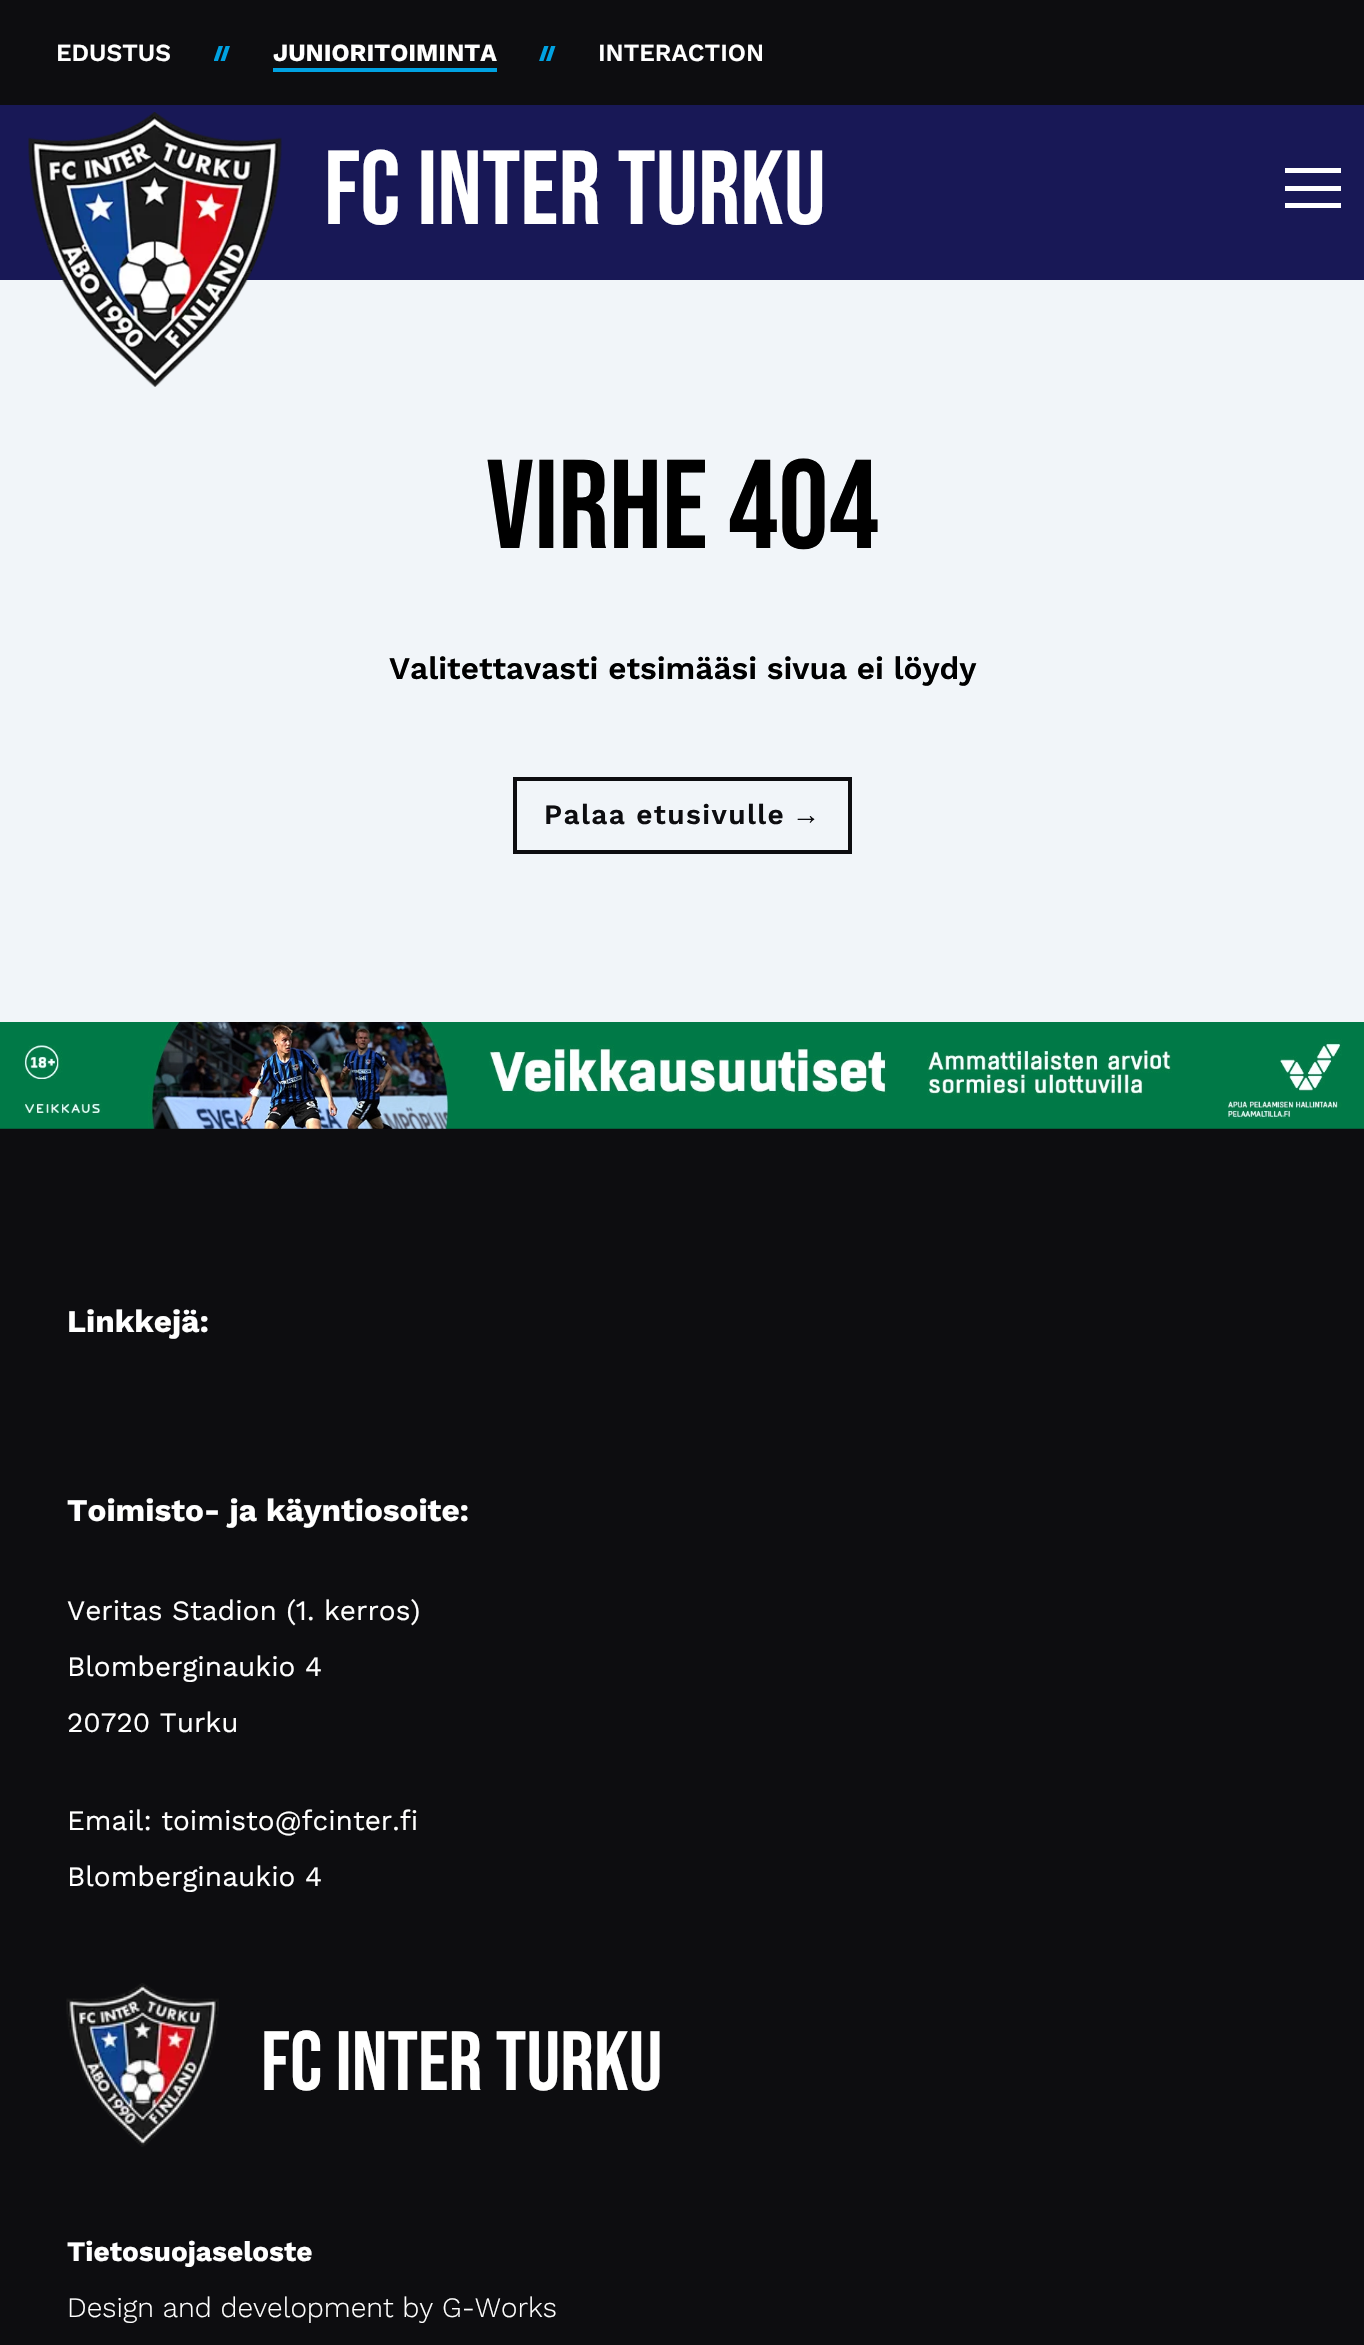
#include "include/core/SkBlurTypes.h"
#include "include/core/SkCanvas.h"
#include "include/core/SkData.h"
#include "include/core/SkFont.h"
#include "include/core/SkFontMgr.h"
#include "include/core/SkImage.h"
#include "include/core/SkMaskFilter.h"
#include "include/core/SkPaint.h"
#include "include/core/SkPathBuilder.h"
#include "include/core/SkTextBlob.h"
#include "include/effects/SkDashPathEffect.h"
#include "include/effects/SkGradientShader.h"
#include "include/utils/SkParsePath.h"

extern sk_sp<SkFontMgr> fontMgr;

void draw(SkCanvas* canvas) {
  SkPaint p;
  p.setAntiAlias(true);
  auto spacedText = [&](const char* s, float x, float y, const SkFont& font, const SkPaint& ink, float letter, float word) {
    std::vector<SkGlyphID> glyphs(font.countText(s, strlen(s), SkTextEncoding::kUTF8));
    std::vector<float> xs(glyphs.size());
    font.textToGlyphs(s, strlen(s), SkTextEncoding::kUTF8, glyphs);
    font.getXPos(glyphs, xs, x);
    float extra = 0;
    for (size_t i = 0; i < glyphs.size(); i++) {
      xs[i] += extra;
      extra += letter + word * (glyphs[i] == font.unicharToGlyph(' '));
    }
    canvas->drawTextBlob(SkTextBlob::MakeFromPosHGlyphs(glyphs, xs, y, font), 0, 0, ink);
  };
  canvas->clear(SkColorSetRGB(13, 13, 16));
  canvas->drawImageRect(SkImages::DeferredFromEncodedData(SkData::MakeFromFileName("images/1.png")), SkRect::MakeLTRB(214, 46, 230, 61), SkSamplingOptions());
  p.setColor(SkColorSetRGB(0, 162, 226));
  canvas->drawRect(SkRect::MakeLTRB(273, 68, 497, 72), p);
  canvas->drawImageRect(SkImages::DeferredFromEncodedData(SkData::MakeFromFileName("images/2.png")), SkRect::MakeLTRB(539, 46, 556, 61), SkSamplingOptions());
  p.setColor(SkColorSetRGB(24, 24, 86));
  canvas->drawRect(SkRect::MakeLTRB(0, 105, 1364, 280), p);
  p.setColor(SkColorSetRGB(241, 245, 249));
  canvas->drawRect(SkRect::MakeLTRB(0, 280, 1364, 1022), p);
  canvas->drawImageRect(SkImages::DeferredFromEncodedData(SkData::MakeFromFileName("images/3.png")), SkRect::MakeLTRB(28, 112, 282, 387), SkSamplingOptions());
  p.setColor(SK_ColorWHITE);
  canvas->drawRect(SkRect::MakeLTRB(1285, 168, 1341, 173), p);
  canvas->drawRect(SkRect::MakeLTRB(1285, 186, 1341, 191), p);
  canvas->drawRect(SkRect::MakeLTRB(1285, 203, 1341, 208), p);
  p.setStyle(SkPaint::kStroke_Style);
  p.setStrokeWidth(4);
  p.setColor(SkColorSetRGB(13, 13, 16));
  canvas->drawRect(SkRect::MakeLTRB(515, 779, 850, 852), p);
  canvas->drawImageRect(SkImages::DeferredFromEncodedData(SkData::MakeFromFileName("images/4.png")), SkRect::MakeLTRB(0, 1022, 1364, 1129), SkSamplingOptions());
  canvas->drawImageRect(SkImages::DeferredFromEncodedData(SkData::MakeFromFileName("images/5.png")), SkRect::MakeLTRB(66, 1983, 219, 2147), SkSamplingOptions());
  SkFont font1(fontMgr->matchFamilyStyle("Work Sans", SkFontStyle(600, SkFontStyle::kNormal_Width, SkFontStyle::kUpright_Slant)), 24.5f);
  font1.setSubpixel(true);
  p.setStyle(SkPaint::kFill_Style);
  p.setColor(SK_ColorWHITE);
  canvas->drawString("EDUSTUS", 56, 61, font1, p);
  SkFont font2(fontMgr->matchFamilyStyle("Work Sans", SkFontStyle::Bold()), 24.5f);
  font2.setSubpixel(true);
  canvas->drawString("JUNIORITOIMINTA", 273, 61, font2, p);
  canvas->drawString("INTERACTION", 598, 61, font1, p);
  SkFont font3(fontMgr->matchFamilyStyle("Bebas Neue", SkFontStyle::Normal()), 105);
  font3.setSubpixel(true);
  canvas->drawString("FC INTER TURKU", 324, 224, font3, p);
  SkFont font4(fontMgr->matchFamilyStyle("Bebas Neue", SkFontStyle::Normal()), 126);
  font4.setSubpixel(true);
  p.setColor(SK_ColorBLACK);
  canvas->drawString("Virhe 404", 486, 548, font4, p);
  SkFont font5(fontMgr->matchFamilyStyle("Work Sans", SkFontStyle(600, SkFontStyle::kNormal_Width, SkFontStyle::kUpright_Slant)), 31.5f);
  font5.setSubpixel(true);
  canvas->drawString("Valitettavasti etsimääsi sivua ei löydy", 389, 679, font5, p);
  SkFont font6(fontMgr->matchFamilyStyle("Work Sans", SkFontStyle(600, SkFontStyle::kNormal_Width, SkFontStyle::kUpright_Slant)), 28);
  font6.setSubpixel(true);
  p.setColor(SkColorSetRGB(13, 13, 16));
  spacedText("Palaa etusivulle", 544, 824, font6, p, 1.4f, 0);
  SkFont font7(fontMgr->matchFamilyStyle("Liberation Serif", SkFontStyle::Bold()), 28);
  font7.setSubpixel(true);
  spacedText("→", 792, 824, font7, p, 1.4f, 0);
  SkFont font8(fontMgr->matchFamilyStyle("Work Sans", SkFontStyle::Bold()), 31.5f);
  font8.setSubpixel(true);
  p.setColor(SK_ColorWHITE);
  canvas->drawString("Linkkejä:", 67, 1332, font8, p);
  canvas->drawString("Toimisto- ja käyntiosoite:", 67, 1521, font8, p);
  SkFont font9(fontMgr->matchFamilyStyle("Work Sans", SkFontStyle::Normal()), 28);
  font9.setSubpixel(true);
  canvas->drawString("Veritas Stadion (1. kerros)", 67, 1620, font9, p);
  canvas->drawString("Blomberginaukio 4", 67, 1676, font9, p);
  canvas->drawString("20720 Turku", 67, 1732, font9, p);
  canvas->drawString("Email: toimisto@fcinter.fi", 67, 1830, font9, p);
  canvas->drawString("Blomberginaukio 4", 67, 1886, font9, p);
  SkFont font10(fontMgr->matchFamilyStyle("Bebas Neue", SkFontStyle::Normal()), 84);
  font10.setSubpixel(true);
  canvas->drawString("FC Inter Turku", 261, 2090, font10, p);
  SkFont font11(fontMgr->matchFamilyStyle("Work Sans", SkFontStyle::Bold()), 28);
  font11.setSubpixel(true);
  canvas->drawString("Tietosuojaseloste", 67, 2261, font11, p);
  SkFont font12(fontMgr->matchFamilyStyle("Work Sans", SkFontStyle(300, SkFontStyle::kNormal_Width, SkFontStyle::kUpright_Slant)), 28);
  font12.setSubpixel(true);
  canvas->drawString("Design and development by G-Works", 67, 2317, font12, p);
}
